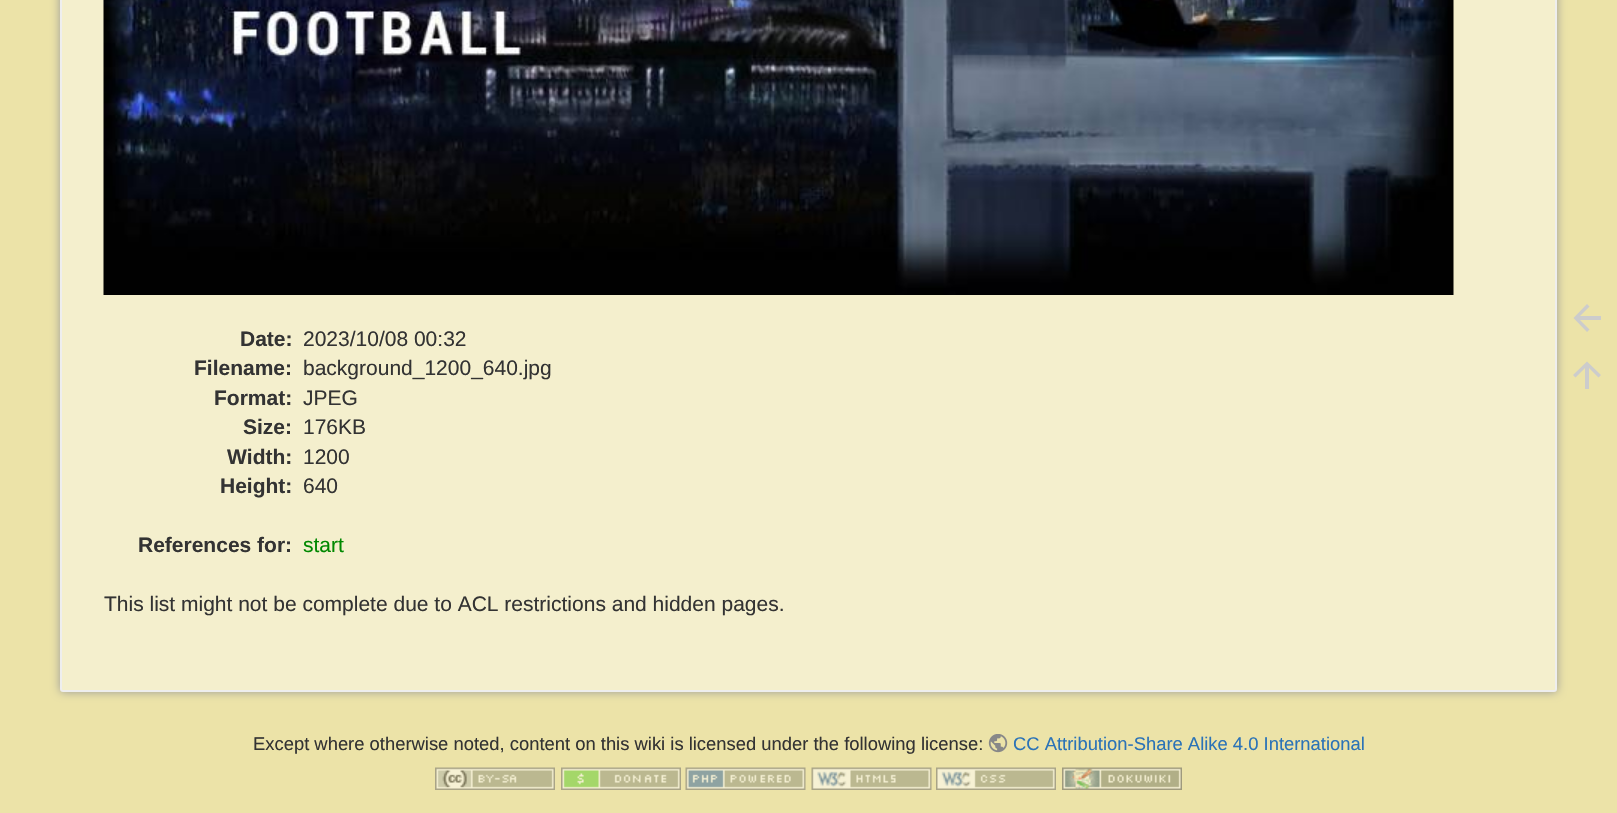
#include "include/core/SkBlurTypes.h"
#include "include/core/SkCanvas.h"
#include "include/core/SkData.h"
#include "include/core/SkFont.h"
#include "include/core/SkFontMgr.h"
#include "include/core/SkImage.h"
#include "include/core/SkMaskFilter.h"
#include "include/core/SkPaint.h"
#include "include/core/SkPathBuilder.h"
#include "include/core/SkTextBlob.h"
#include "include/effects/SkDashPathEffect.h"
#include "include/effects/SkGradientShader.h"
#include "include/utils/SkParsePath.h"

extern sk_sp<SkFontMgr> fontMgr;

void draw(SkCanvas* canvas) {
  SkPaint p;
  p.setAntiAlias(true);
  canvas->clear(SkColorSetRGB(236, 227, 168));
  p.setColor(SkColorSetRGB(153, 153, 153));
  p.setMaskFilter(SkMaskFilter::MakeBlur(kNormal_SkBlurStyle, 5));
  canvas->drawRoundRect(SkRect::MakeLTRB(60, -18, 1557, 692), 3, 3, p);
  p.setMaskFilter(nullptr);
  p.setColor(SkColorSetRGB(244, 239, 205));
  canvas->drawRoundRect(SkRect::MakeLTRB(61, -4, 1556, 691), 2, 2, p);
  p.setStyle(SkPaint::kStroke_Style);
  p.setStrokeWidth(2);
  p.setColor(SkColorSetRGB(238, 238, 238));
  canvas->drawRoundRect(SkRect::MakeLTRB(61, -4, 1556, 691), 2, 2, p);
  canvas->drawImageRect(SkImages::DeferredFromEncodedData(SkData::MakeFromFileName("images/1.png")), SkRect::MakeLTRB(103, 0, 1454, 295), SkSamplingOptions());
  p.setStyle(SkPaint::kFill_Style);
  p.setColor(SkColorSetRGB(204, 204, 204));
  canvas->drawPath(SkPathBuilder().moveTo(1601, 316).lineTo(1601, 320).lineTo(1580, 320).lineTo(1589.5f, 329.5f).lineTo(1587, 332).lineTo(1573.5f, 318).lineTo(1587, 304).lineTo(1589.5f, 306.5f).lineTo(1580, 316).close().detach(), p);
  canvas->drawPath(SkPathBuilder().moveTo(1589, 389).lineTo(1585, 389).lineTo(1585, 368).lineTo(1575.5f, 377.5f).lineTo(1573, 375).lineTo(1587, 361.5f).lineTo(1601, 375).lineTo(1598.5f, 377.5f).lineTo(1589, 368).close().detach(), p);
  canvas->drawImageRect(SkImages::DeferredFromEncodedData(SkData::MakeFromFileName("images/2.png")), SkRect::MakeLTRB(988, 734, 1008, 753), SkSamplingOptions());
  canvas->drawImageRect(SkImages::DeferredFromEncodedData(SkData::MakeFromFileName("images/3.png")), SkRect::MakeLTRB(435, 767, 555, 790), SkSamplingOptions());
  canvas->drawImageRect(SkImages::DeferredFromEncodedData(SkData::MakeFromFileName("images/4.png")), SkRect::MakeLTRB(561, 767, 681, 790), SkSamplingOptions());
  canvas->drawImageRect(SkImages::DeferredFromEncodedData(SkData::MakeFromFileName("images/5.png")), SkRect::MakeLTRB(685, 767, 806, 790), SkSamplingOptions());
  canvas->drawImageRect(SkImages::DeferredFromEncodedData(SkData::MakeFromFileName("images/6.png")), SkRect::MakeLTRB(811, 767, 932, 790), SkSamplingOptions());
  canvas->drawImageRect(SkImages::DeferredFromEncodedData(SkData::MakeFromFileName("images/7.png")), SkRect::MakeLTRB(936, 767, 1056, 790), SkSamplingOptions());
  canvas->drawImageRect(SkImages::DeferredFromEncodedData(SkData::MakeFromFileName("images/8.png")), SkRect::MakeLTRB(1062, 767, 1182, 790), SkSamplingOptions());
  SkFont font1(fontMgr->matchFamilyStyle("Liberation Sans", SkFontStyle::Bold()), 21);
  font1.setSubpixel(true);
  p.setColor(SkColorSetRGB(51, 51, 51));
  canvas->drawString("Date:", 240, 346, font1, p);
  SkFont font2(fontMgr->matchFamilyStyle("Liberation Sans", SkFontStyle::Normal()), 21);
  font2.setSubpixel(true);
  canvas->drawString("2023/10/08 00:32", 303, 346, font2, p);
  canvas->drawString("Filename:", 194, 375, font1, p);
  canvas->drawString("background_1200_640.jpg", 303, 375, font2, p);
  canvas->drawString("Format:", 214, 405, font1, p);
  canvas->drawString("JPEG", 303, 405, font2, p);
  canvas->drawString("Size:", 243, 434, font1, p);
  canvas->drawString("176KB", 303, 434, font2, p);
  canvas->drawString("Width:", 227, 464, font1, p);
  canvas->drawString("1200", 303, 464, font2, p);
  canvas->drawString("Height:", 220, 493, font1, p);
  canvas->drawString("640", 303, 493, font2, p);
  canvas->drawString("References for:", 138, 552, font1, p);
  p.setColor(SkColorSetRGB(0, 136, 0));
  canvas->drawString("start", 303, 552, font2, p);
  p.setColor(SkColorSetRGB(51, 51, 51));
  canvas->drawString("This list might not be complete due to ACL restrictions and hidden pages.", 104, 611, font2, p);
  SkFont font3(fontMgr->matchFamilyStyle("Liberation Sans", SkFontStyle::Normal()), 18.4f);
  font3.setSubpixel(true);
  canvas->drawString("Except where otherwise noted, content on this wiki is licensed under the following license:", 253, 750, font3, p);
  p.setColor(SkColorSetRGB(43, 115, 183));
  canvas->drawString("CC Attribution-Share Alike 4.0 International", 1013, 750, font3, p);
}
